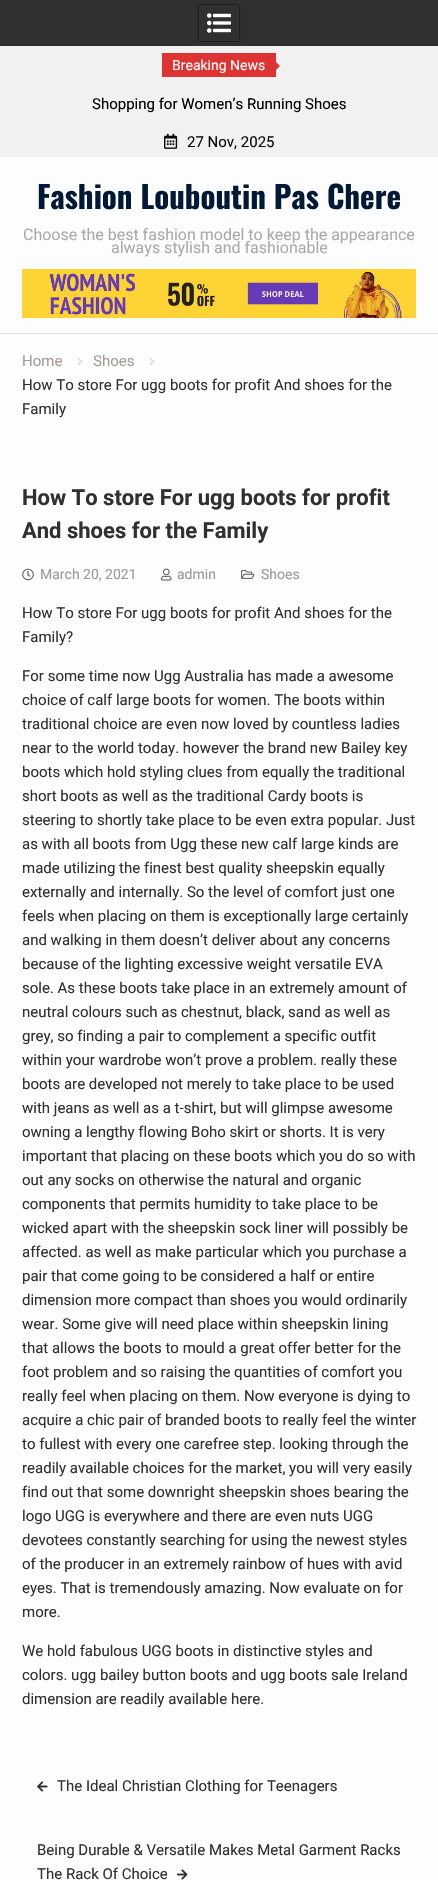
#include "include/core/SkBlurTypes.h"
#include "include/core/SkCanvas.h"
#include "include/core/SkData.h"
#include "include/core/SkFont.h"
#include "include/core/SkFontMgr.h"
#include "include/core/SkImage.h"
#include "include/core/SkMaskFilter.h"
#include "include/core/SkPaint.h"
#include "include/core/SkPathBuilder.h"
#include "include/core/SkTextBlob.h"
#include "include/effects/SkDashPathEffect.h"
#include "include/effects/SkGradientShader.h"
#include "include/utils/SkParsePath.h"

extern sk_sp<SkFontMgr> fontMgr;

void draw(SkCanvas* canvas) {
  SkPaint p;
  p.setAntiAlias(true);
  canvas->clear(SkColorSetRGB(253, 253, 253));
  p.setColor(SkColorSetRGB(241, 241, 241));
  canvas->drawRect(SkRect::MakeLTRB(0, 46, 438, 157), p);
  p.setColor(SkColorSetRGB(221, 51, 51));
  canvas->drawRect(SkRect::MakeLTRB(162, 53, 276, 77), p);
  canvas->drawPath(SkPathBuilder().moveTo(270, 76).lineTo(270, 56).lineTo(280, 66).close().detach(), p);
  canvas->drawImageRect(SkImages::DeferredFromEncodedData(SkData::MakeFromFileName("images/1.png")), SkRect::MakeLTRB(164, 133, 178, 149), SkSamplingOptions());
  p.setColor(SkColorSetRGB(48, 48, 48));
  canvas->drawRect(SkRect::MakeLTRB(0, 0, 438, 46), p);
  canvas->save();
  canvas->clipPath(SkPathBuilder(SkPathFillType::kEvenOdd).moveTo(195, 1).lineTo(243, 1).lineTo(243, 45).lineTo(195, 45).close().moveTo(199, 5).lineTo(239, 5).lineTo(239, 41).lineTo(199, 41).close().detach(), true);
  p.setColor(SK_ColorBLACK);
  p.setMaskFilter(SkMaskFilter::MakeBlur(kNormal_SkBlurStyle, 1));
  canvas->drawRect(SkRect::MakeLTRB(199, 5, 239, 41), p);
  p.setMaskFilter(nullptr);
  canvas->restore();
  canvas->drawImageRect(SkImages::DeferredFromEncodedData(SkData::MakeFromFileName("images/2.png")), SkRect::MakeLTRB(207, 13, 231, 33), SkSamplingOptions());
  canvas->drawImageRect(SkImages::DeferredFromEncodedData(SkData::MakeFromFileName("images/3.png")), SkRect::MakeLTRB(22, 269, 416, 318), SkSamplingOptions());
  p.setColor(SkColorSetRGB(221, 221, 221));
  canvas->drawRect(SkRect::MakeLTRB(0, 333, 438, 334), p);
  canvas->drawImageRect(SkImages::DeferredFromEncodedData(SkData::MakeFromFileName("images/4.png")), SkRect::MakeLTRB(77, 357, 83, 366), SkSamplingOptions());
  canvas->drawImageRect(SkImages::DeferredFromEncodedData(SkData::MakeFromFileName("images/4.png")), SkRect::MakeLTRB(149, 357, 155, 366), SkSamplingOptions());
  canvas->drawImageRect(SkImages::DeferredFromEncodedData(SkData::MakeFromFileName("images/5.png")), SkRect::MakeLTRB(22, 568, 34, 581), SkSamplingOptions());
  canvas->drawImageRect(SkImages::DeferredFromEncodedData(SkData::MakeFromFileName("images/6.png")), SkRect::MakeLTRB(161, 568, 172, 581), SkSamplingOptions());
  canvas->drawImageRect(SkImages::DeferredFromEncodedData(SkData::MakeFromFileName("images/7.png")), SkRect::MakeLTRB(241, 570, 255, 579), SkSamplingOptions());
  canvas->drawImageRect(SkImages::DeferredFromEncodedData(SkData::MakeFromFileName("images/8.png")), SkRect::MakeLTRB(37, 1781, 48, 1792), SkSamplingOptions());
  canvas->drawImageRect(SkImages::DeferredFromEncodedData(SkData::MakeFromFileName("images/9.png")), SkRect::MakeLTRB(177, 1869, 188, 1880), SkSamplingOptions());
  SkFont font1(fontMgr->matchFamilyStyle("Roboto", SkFontStyle::Normal()), 14);
  font1.setSubpixel(true);
  p.setColor(SkColorSetRGB(253, 253, 253));
  canvas->drawString("Breaking News", 172, 70, font1, p);
  SkFont font2(fontMgr->matchFamilyStyle("Roboto", SkFontStyle::Normal()), 15);
  font2.setSubpixel(true);
  p.setColor(SK_ColorBLACK);
  canvas->drawString("Shopping for Women’s Running Shoes", 92, 109, font2, p);
  p.setColor(SkColorSetRGB(10, 10, 10));
  canvas->drawString("27 Nov, 2025", 187, 147, font2, p);
  SkFont font3(fontMgr->matchFamilyStyle("Oswald", SkFontStyle::Bold()), 31);
  font3.setSubpixel(true);
  p.setColor(SkColorSetRGB(0, 25, 54));
  canvas->drawString("Fashion Louboutin Pas Chere", 37, 209, font3, p);
  SkFont font4(fontMgr->matchFamilyStyle("Roboto", SkFontStyle::Normal()), 16);
  font4.setSubpixel(true);
  p.setColor(SkColorSetRGB(170, 170, 170));
  canvas->drawString("Choose the best fashion model to keep the appearance", 23, 240, font4, p);
  canvas->drawString("always stylish and fashionable", 111, 253, font4, p);
  p.setColor(SkColorSetRGB(162, 154, 154));
  canvas->drawString("Home", 22, 366, font2, p);
  canvas->drawString("Shoes", 93, 366, font2, p);
  p.setColor(SkColorSetRGB(48, 48, 48));
  canvas->drawString("How To store For ugg boots for profit And shoes for the", 22, 390, font2, p);
  canvas->drawString("Family", 22, 414, font2, p);
  SkFont font5(fontMgr->matchFamilyStyle("Roboto", SkFontStyle::Bold()), 22);
  font5.setSubpixel(true);
  canvas->drawString("How To store For ugg boots for profit", 22, 505, font5, p);
  canvas->drawString("And shoes for the Family", 22, 538, font5, p);
  p.setColor(SkColorSetRGB(153, 153, 153));
  canvas->drawString("March 20, 2021", 40, 579, font1, p);
  canvas->drawString("admin", 177, 579, font1, p);
  canvas->drawString("Shoes", 261, 579, font1, p);
  p.setColor(SkColorSetRGB(48, 48, 48));
  canvas->drawString("How To store For ugg boots for profit And shoes for the", 22, 618, font2, p);
  canvas->drawString("Family?", 22, 642, font2, p);
  canvas->drawString("For some time now Ugg Australia has made a awesome", 22, 681, font2, p);
  canvas->drawString("choice of calf large boots for women. The boots within", 22, 705, font2, p);
  canvas->drawString("traditional choice are even now loved by countless ladies", 22, 729, font2, p);
  canvas->drawString("near to the world today. however the brand new Bailey key", 22, 753, font2, p);
  canvas->drawString("boots which hold styling clues from equally the traditional", 22, 777, font2, p);
  canvas->drawString("short boots as well as the traditional Cardy boots is", 22, 801, font2, p);
  canvas->drawString("steering to shortly take place to be even extra popular. Just", 22, 825, font2, p);
  canvas->drawString("as with all boots from Ugg these new calf large kinds are", 22, 849, font2, p);
  canvas->drawString("made utilizing the finest best quality sheepskin equally", 22, 873, font2, p);
  canvas->drawString("externally and internally. So the level of comfort just one", 22, 897, font2, p);
  canvas->drawString("feels when placing on them is exceptionally large certainly", 22, 921, font2, p);
  canvas->drawString("and walking in them doesn’t deliver about any concerns", 22, 945, font2, p);
  canvas->drawString("because of the lighting excessive weight versatile EVA", 22, 969, font2, p);
  canvas->drawString("sole. As these boots take place in an extremely amount of", 22, 993, font2, p);
  canvas->drawString("neutral colours such as chestnut, black, sand as well as", 22, 1017, font2, p);
  canvas->drawString("grey, so finding a pair to complement a specific outfit", 22, 1041, font2, p);
  canvas->drawString("within your wardrobe won’t prove a problem. really these", 22, 1065, font2, p);
  canvas->drawString("boots are developed not merely to take place to be used", 22, 1089, font2, p);
  canvas->drawString("with jeans as well as a t-shirt, but will glimpse awesome", 22, 1113, font2, p);
  canvas->drawString("owning a lengthy flowing Boho skirt or shorts. It is very", 22, 1137, font2, p);
  canvas->drawString("important that placing on these boots which you do so with", 22, 1161, font2, p);
  canvas->drawString("out any socks on otherwise the natural and organic", 22, 1185, font2, p);
  canvas->drawString("components that permits humidity to take place to be", 22, 1209, font2, p);
  canvas->drawString("wicked apart with the sheepskin sock liner will possibly be", 22, 1233, font2, p);
  canvas->drawString("affected. as well as make particular which you purchase a", 22, 1257, font2, p);
  canvas->drawString("pair that come going to be considered a half or entire", 22, 1281, font2, p);
  canvas->drawString("dimension more compact than shoes you would ordinarily", 22, 1305, font2, p);
  canvas->drawString("wear. Some give will need place within sheepskin lining", 22, 1329, font2, p);
  canvas->drawString("that allows the boots to mould a great offer better for the", 22, 1353, font2, p);
  canvas->drawString("foot problem and so raising the quantities of comfort you", 22, 1377, font2, p);
  canvas->drawString("really feel when placing on them. Now everyone is dying to", 22, 1401, font2, p);
  canvas->drawString("acquire a chic pair of branded boots to really feel the winter", 22, 1425, font2, p);
  canvas->drawString("to fullest with every one carefree step. looking through the", 22, 1449, font2, p);
  canvas->drawString("readily available choices for the market, you will very easily", 22, 1473, font2, p);
  canvas->drawString("find out that some downright sheepskin shoes bearing the", 22, 1497, font2, p);
  canvas->drawString("logo UGG is everywhere and there are even nuts UGG", 22, 1521, font2, p);
  canvas->drawString("devotees constantly searching for using the newest styles", 22, 1545, font2, p);
  canvas->drawString("of the producer in an extremely rainbow of hues with avid", 22, 1569, font2, p);
  canvas->drawString("eyes. That is tremendously amazing. Now evaluate on for", 22, 1593, font2, p);
  canvas->drawString("more.", 22, 1617, font2, p);
  canvas->drawString("We hold fabulous UGG boots in distinctive styles and", 22, 1656, font2, p);
  canvas->drawString("colors. ugg bailey button boots and ugg boots sale Ireland", 22, 1680, font2, p);
  canvas->drawString("dimension are readily available here.", 22, 1704, font2, p);
  canvas->drawString("The Ideal Christian Clothing for Teenagers", 57, 1791, font2, p);
  canvas->drawString("Being Durable & Versatile Makes Metal Garment Racks", 37, 1855, font2, p);
  canvas->drawString("The Rack Of Choice", 37, 1879, font2, p);
}
